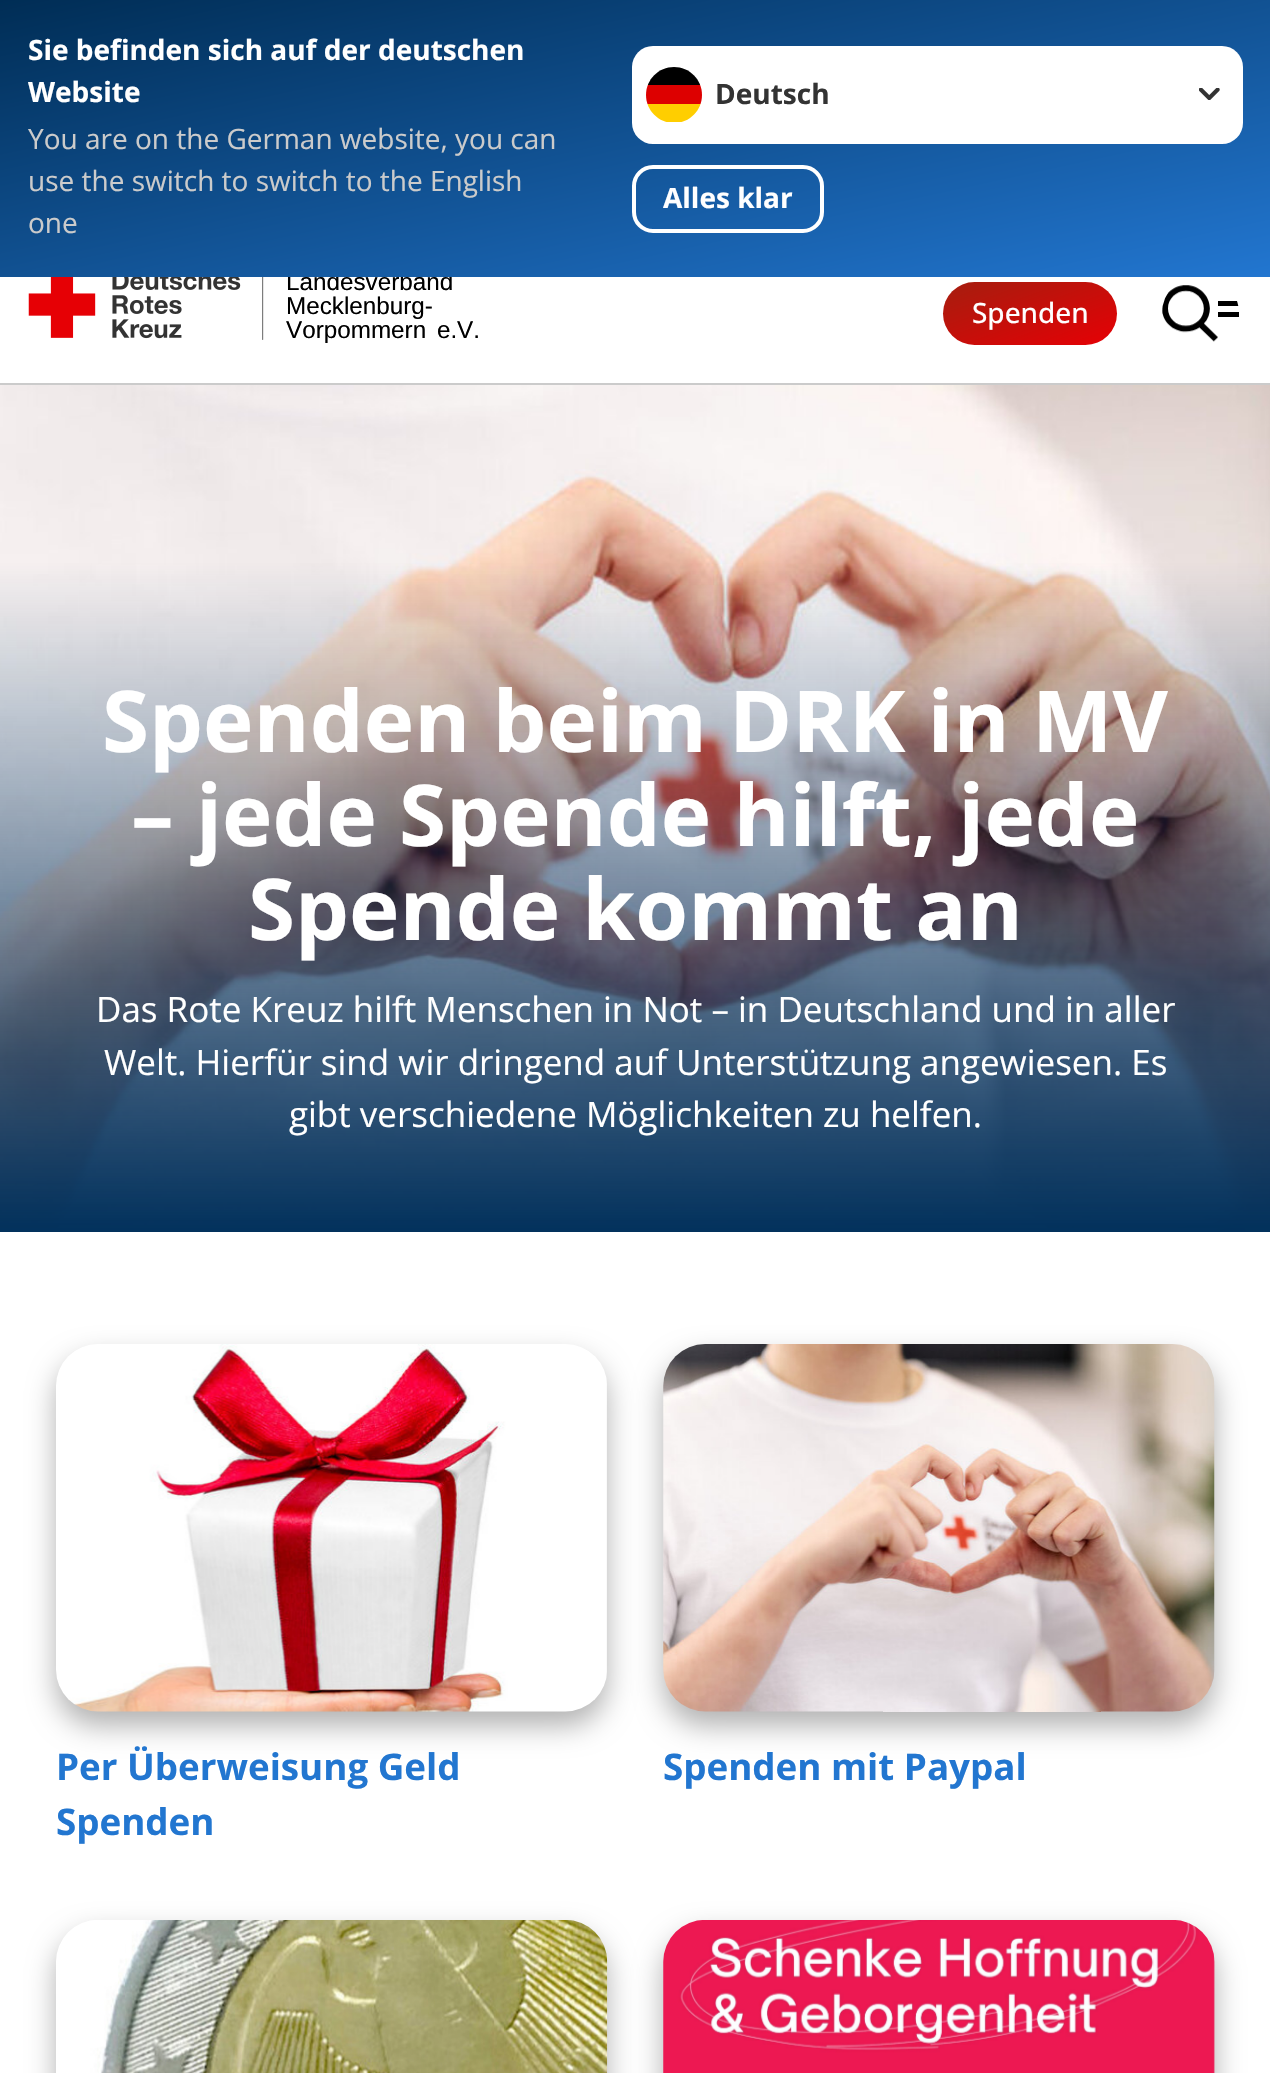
#include "include/core/SkBlurTypes.h"
#include "include/core/SkCanvas.h"
#include "include/core/SkData.h"
#include "include/core/SkFont.h"
#include "include/core/SkFontMgr.h"
#include "include/core/SkImage.h"
#include "include/core/SkMaskFilter.h"
#include "include/core/SkPaint.h"
#include "include/core/SkPathBuilder.h"
#include "include/core/SkTextBlob.h"
#include "include/effects/SkDashPathEffect.h"
#include "include/effects/SkGradientShader.h"
#include "include/utils/SkParsePath.h"

extern sk_sp<SkFontMgr> fontMgr;

void draw(SkCanvas* canvas) {
  SkPaint p;
  p.setAntiAlias(true);
  auto spacedText = [&](const char* s, float x, float y, const SkFont& font, const SkPaint& ink, float letter, float word) {
    std::vector<SkGlyphID> glyphs(font.countText(s, strlen(s), SkTextEncoding::kUTF8));
    std::vector<float> xs(glyphs.size());
    font.textToGlyphs(s, strlen(s), SkTextEncoding::kUTF8, glyphs);
    font.getXPos(glyphs, xs, x);
    float extra = 0;
    for (size_t i = 0; i < glyphs.size(); i++) {
      xs[i] += extra;
      extra += letter + word * (glyphs[i] == font.unicharToGlyph(' '));
    }
    canvas->drawTextBlob(SkTextBlob::MakeFromPosHGlyphs(glyphs, xs, y, font), 0, 0, ink);
  };
  canvas->clear(SK_ColorWHITE);
  p.setColor(SkColorSetRGB(203, 203, 203));
  canvas->drawRect(SkRect::MakeLTRB(0, 383, 1270, 385), p);
  canvas->drawImageRect(SkImages::DeferredFromEncodedData(SkData::MakeFromFileName("images/2.png")), SkRect::MakeLTRB(28, 277, 264, 340), SkSamplingOptions());
  {
    const SkColor colors[] = {SkColorSetRGB(165, 30, 15), SkColorSetRGB(230, 0, 5)};
    const float stops[] = {0, 1};
    const SkPoint ends[] = {{1010, 258}, {1050, 369}};
    p.setShader(SkGradientShader::MakeLinear(ends, colors, stops, 2, SkTileMode::kClamp));
    p.setAlpha(255);
  }
  canvas->drawRoundRect(SkRect::MakeLTRB(943, 282, 1117, 345), 31.5f, 31.5f, p);
  canvas->drawImageRect(SkImages::DeferredFromEncodedData(SkData::MakeFromFileName("images/3.png")), SkRect::MakeLTRB(1162, 285, 1218, 342), SkSamplingOptions());
  canvas->save();
  canvas->clipPath(SkPathBuilder().moveTo(1200.5f, 275).cubicTo(1222, 275, 1239, 292, 1239, 313.5f).cubicTo(1239, 335, 1222, 352, 1200.5f, 352).cubicTo(1179, 352, 1162, 335, 1162, 313.5f).cubicTo(1162, 292, 1179, 275, 1200.5f, 275).close().detach(), true);
  p.setShader(nullptr);
  p.setColor(SK_ColorBLACK);
  canvas->drawRect(SkRect::MakeLTRB(1218, 301, 1239, 306), p);
  canvas->restore();
  canvas->drawRect(SkRect::MakeLTRB(1218, 312, 1239, 317), p);
  canvas->drawImageRect(SkImages::DeferredFromEncodedData(SkData::MakeFromFileName("images/4.png")), SkRect::MakeLTRB(0, 385, 1270, 1232), SkSamplingOptions());
  p.setColor(SkColorSetARGB(77, 0, 0, 0));
  p.setMaskFilter(SkMaskFilter::MakeBlur(kNormal_SkBlurStyle, 14));
  canvas->drawRoundRect(SkRect::MakeLTRB(56, 1358, 607, 1726), 42, 42, p);
  p.setMaskFilter(nullptr);
  canvas->drawImageRect(SkImages::DeferredFromEncodedData(SkData::MakeFromFileName("images/5.png")), SkRect::MakeLTRB(56, 1344, 607, 1712), SkSamplingOptions());
  p.setMaskFilter(SkMaskFilter::MakeBlur(kNormal_SkBlurStyle, 14));
  canvas->drawRoundRect(SkRect::MakeLTRB(663, 1358, 1215, 1726), 42, 42, p);
  p.setMaskFilter(nullptr);
  canvas->drawImageRect(SkImages::DeferredFromEncodedData(SkData::MakeFromFileName("images/6.png")), SkRect::MakeLTRB(663, 1344, 1215, 1712), SkSamplingOptions());
  p.setMaskFilter(SkMaskFilter::MakeBlur(kNormal_SkBlurStyle, 14));
  canvas->drawRoundRect(SkRect::MakeLTRB(56, 1934, 607, 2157), 42, 42, p);
  p.setMaskFilter(nullptr);
  canvas->drawImageRect(SkImages::DeferredFromEncodedData(SkData::MakeFromFileName("images/7.png")), SkRect::MakeLTRB(56, 1920, 608, 2073), SkSamplingOptions());
  p.setMaskFilter(SkMaskFilter::MakeBlur(kNormal_SkBlurStyle, 14));
  canvas->drawRoundRect(SkRect::MakeLTRB(663, 1934, 1215, 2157), 42, 42, p);
  p.setMaskFilter(nullptr);
  canvas->drawImageRect(SkImages::DeferredFromEncodedData(SkData::MakeFromFileName("images/8.png")), SkRect::MakeLTRB(663, 1920, 1215, 2073), SkSamplingOptions());
  SkFont font1(fontMgr->matchFamilyStyle("Liberation Sans", SkFontStyle::Normal()), 24.25f);
  font1.setSubpixel(true);
  p.setColor(SK_ColorBLACK);
  canvas->drawString("Landesverband", 286, 290, font1, p);
  {
    const SkColor colors[] = {SkColorSetRGB(0, 45, 85), SkColorSetRGB(34, 118, 208)};
    const float stops[] = {0, 1};
    const SkPoint ends[] = {{578, -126}, {693, 402}};
    p.setShader(SkGradientShader::MakeLinear(ends, colors, stops, 2, SkTileMode::kClamp));
    p.setAlpha(255);
  }
  canvas->drawRect(SkRect::MakeLTRB(0, 0, 1270, 277), p);
  p.setShader(nullptr);
  p.setColor(SK_ColorWHITE);
  canvas->drawRoundRect(SkRect::MakeLTRB(632, 46, 1243, 144), 21, 21, p);
  canvas->save();
  canvas->clipPath(SkPathBuilder().moveTo(674, 67).cubicTo(689.5f, 67, 702, 79.5f, 702, 95).cubicTo(702, 110.5f, 689.5f, 123, 674, 123).cubicTo(658.5f, 123, 646, 110.5f, 646, 95).cubicTo(646, 79.5f, 658.5f, 67, 674, 67).close().detach(), true);
  p.setColor(SkColorSetRGB(221, 0, 0));
  canvas->drawRect(SkRect::MakeLTRB(646, 85, 702, 104), p);
  p.setColor(SK_ColorBLACK);
  canvas->drawRect(SkRect::MakeLTRB(647, 67, 701, 85), p);
  p.setColor(SkColorSetRGB(255, 206, 0));
  canvas->drawRect(SkRect::MakeLTRB(647, 104, 701, 122), p);
  canvas->restore();
  SkFont font2(fontMgr->matchFamilyStyle("Open Sans", SkFontStyle::Bold()), 28);
  font2.setSubpixel(true);
  p.setColor(SkColorSetRGB(51, 51, 51));
  canvas->drawString("Deutsch", 715, 104, font2, p);
  canvas->drawImageRect(SkImages::DeferredFromEncodedData(SkData::MakeFromFileName("images/1.png")), SkRect::MakeLTRB(1199, 88, 1220, 100), SkSamplingOptions());
  p.setStyle(SkPaint::kStroke_Style);
  p.setStrokeWidth(4);
  p.setColor(SK_ColorWHITE);
  canvas->drawRoundRect(SkRect::MakeLTRB(634, 167, 822, 231), 19, 19, p);
  p.setStyle(SkPaint::kFill_Style);
  canvas->drawString("Alles klar", 663, 208, font2, p);
  SkFont font3(fontMgr->matchFamilyStyle("Open Sans", SkFontStyle::Normal()), 28);
  font3.setSubpixel(true);
  p.setColor(SkColorSetRGB(203, 203, 203));
  canvas->drawString("one", 28, 233, font3, p);
  canvas->drawString("use the switch to switch to the English", 28, 191, font3, p);
  canvas->drawString("You are on the German website, you can", 28, 149, font3, p);
  p.setColor(SK_ColorWHITE);
  canvas->drawString("Website", 28, 102, font2, p);
  canvas->drawString("Sie befinden sich auf der deutschen", 28, 60, font2, p);
  p.setColor(SK_ColorBLACK);
  canvas->drawString("Mecklenburg-", 286, 314, font1, p);
  spacedText("Vorpommern e.V.", 286, 338, font1, p, 0, 4);
  SkFont font4(fontMgr->matchFamilyStyle("Open Sans", SkFontStyle(500, SkFontStyle::kNormal_Width, SkFontStyle::kUpright_Slant)), 28);
  font4.setSubpixel(true);
  p.setColor(SK_ColorWHITE);
  canvas->drawString("Spenden", 972, 323, font4, p);
  SkFont font5(fontMgr->matchFamilyStyle("Open Sans", SkFontStyle::Bold()), 85.4f);
  font5.setSubpixel(true);
  canvas->drawString("Spenden beim DRK in MV", 102, 752, font5, p);
  canvas->drawString("– jede Spende hilft, jede", 131, 846, font5, p);
  canvas->drawString("Spende kommt an", 248, 940, font5, p);
  SkFont font6(fontMgr->matchFamilyStyle("Open Sans", SkFontStyle::Normal()), 35);
  font6.setSubpixel(true);
  canvas->drawString("Das Rote Kreuz hilft Menschen in Not – in Deutschland und in aller", 96, 1022, font6, p);
  canvas->drawString("Welt. Hierfür sind wir dringend auf Unterstützung angewiesen. Es", 104, 1075, font6, p);
  canvas->drawString("gibt verschiedene Möglichkeiten zu helfen.", 289, 1127, font6, p);
  SkFont font7(fontMgr->matchFamilyStyle("Open Sans", SkFontStyle::Bold()), 36.75f);
  font7.setSubpixel(true);
  p.setColor(SkColorSetRGB(34, 118, 208));
  canvas->drawString("Per Überweisung Geld", 56, 1780, font7, p);
  canvas->drawString("Spenden", 56, 1835, font7, p);
  canvas->drawString("Spenden mit Paypal", 663, 1780, font7, p);
}
